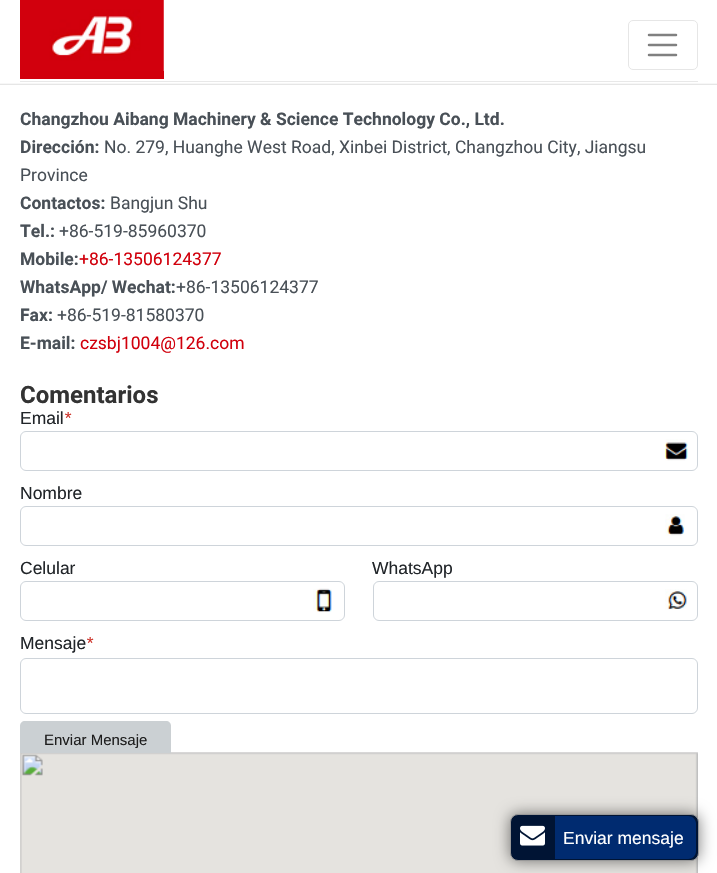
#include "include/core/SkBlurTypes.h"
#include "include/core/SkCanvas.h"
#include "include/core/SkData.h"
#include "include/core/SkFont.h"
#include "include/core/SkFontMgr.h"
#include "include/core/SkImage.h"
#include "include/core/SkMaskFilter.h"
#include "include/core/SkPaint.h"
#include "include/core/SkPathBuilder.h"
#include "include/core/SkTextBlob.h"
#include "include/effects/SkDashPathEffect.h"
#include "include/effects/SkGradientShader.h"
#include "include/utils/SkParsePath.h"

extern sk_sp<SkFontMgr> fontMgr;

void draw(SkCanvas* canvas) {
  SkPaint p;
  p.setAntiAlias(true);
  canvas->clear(SK_ColorWHITE);
  p.setColor(SkColorSetRGB(247, 247, 247));
  canvas->drawRect(SkRect::MakeLTRB(0, 83, 717, 84), p);
  canvas->drawImageRect(SkImages::DeferredFromEncodedData(SkData::MakeFromFileName("images/1.png")), SkRect::MakeLTRB(20, 0, 164, 71), SkSamplingOptions());
  p.setColor(SkColorSetRGB(209, 0, 12));
  canvas->drawRect(SkRect::MakeLTRB(20, 71, 164, 79), p);
  p.setStyle(SkPaint::kStroke_Style);
  p.setStrokeWidth(1);
  p.setColor(SkColorSetRGB(230, 230, 230));
  canvas->drawRoundRect(SkRect::MakeLTRB(628.5f, 20.5f, 697.5f, 69.5f), 4.5f, 4.5f, p);
  p.setStrokeWidth(2.5f);
  p.setStrokeCap(SkPaint::kRound_Cap);
  p.setColor(SkColorSetRGB(128, 128, 128));
  canvas->drawPath(SkPathBuilder().moveTo(649, 35).lineTo(676, 35).moveTo(649, 45).lineTo(676, 45).moveTo(649, 55).lineTo(676, 55).detach(), p);
  p.setStyle(SkPaint::kFill_Style);
  p.setColor(SkColorSetRGB(232, 232, 232));
  canvas->drawRect(SkRect::MakeLTRB(20, 81, 698, 82), p);
  p.setColor(SkColorSetRGB(230, 230, 230));
  canvas->drawRect(SkRect::MakeLTRB(0, 84, 717, 85), p);
  p.setStyle(SkPaint::kStroke_Style);
  p.setStrokeWidth(1);
  p.setStrokeCap(SkPaint::kButt_Cap);
  p.setColor(SkColorSetRGB(206, 212, 218));
  canvas->drawRoundRect(SkRect::MakeLTRB(20.5f, 431.5f, 697.5f, 470.5f), 5.5f, 5.5f, p);
  canvas->drawImageRect(SkImages::DeferredFromEncodedData(SkData::MakeFromFileName("images/2.png")), SkRect::MakeLTRB(665, 439, 688, 461), SkSamplingOptions());
  canvas->drawRoundRect(SkRect::MakeLTRB(20.5f, 506.5f, 697.5f, 545.5f), 5.5f, 5.5f, p);
  canvas->drawImageRect(SkImages::DeferredFromEncodedData(SkData::MakeFromFileName("images/3.png")), SkRect::MakeLTRB(665, 514, 685, 536), SkSamplingOptions());
  canvas->drawRoundRect(SkRect::MakeLTRB(20.5f, 581.5f, 344.5f, 620.5f), 5.5f, 5.5f, p);
  canvas->drawImageRect(SkImages::DeferredFromEncodedData(SkData::MakeFromFileName("images/4.png")), SkRect::MakeLTRB(313, 588, 332, 612), SkSamplingOptions());
  canvas->drawRoundRect(SkRect::MakeLTRB(373.5f, 581.5f, 697.5f, 620.5f), 5.5f, 5.5f, p);
  canvas->drawImageRect(SkImages::DeferredFromEncodedData(SkData::MakeFromFileName("images/5.png")), SkRect::MakeLTRB(665, 589, 687, 610), SkSamplingOptions());
  canvas->drawRoundRect(SkRect::MakeLTRB(20.5f, 658.5f, 697.5f, 713.5f), 5.5f, 5.5f, p);
  canvas->drawImageRect(SkImages::DeferredFromEncodedData(SkData::MakeFromFileName("images/6.png")), SkRect::MakeLTRB(20, 752, 698, 873), SkSamplingOptions());
  p.setStyle(SkPaint::kFill_Style);
  p.setColor(SkColorSetRGB(203, 208, 211));
  canvas->drawPath(SkPathBuilder().moveTo(25, 721).lineTo(166, 721).cubicTo(169, 721, 171, 723, 171, 726).lineTo(171, 753).lineTo(20, 753).lineTo(20, 726).cubicTo(20, 723, 22, 721, 25, 721).close().detach(), p);
  p.setColor(SkColorSetARGB(128, 0, 0, 0));
  p.setMaskFilter(SkMaskFilter::MakeBlur(kNormal_SkBlurStyle, 7.5f));
  canvas->drawRoundRect(SkRect::MakeLTRB(510, 814, 699, 861), 8, 8, p);
  p.setMaskFilter(nullptr);
  p.setColor(SkColorSetRGB(0, 20, 52));
  canvas->drawRoundRect(SkRect::MakeLTRB(510.5f, 814.5f, 698.5f, 860.5f), 7.5f, 7.5f, p);
  p.setStyle(SkPaint::kStroke_Style);
  p.setColor(SkColorSetRGB(153, 153, 153));
  canvas->drawRoundRect(SkRect::MakeLTRB(510.5f, 814.5f, 698.5f, 860.5f), 7.5f, 7.5f, p);
  canvas->drawImageRect(SkImages::DeferredFromEncodedData(SkData::MakeFromFileName("images/7.png")), SkRect::MakeLTRB(520, 825, 545, 846), SkSamplingOptions());
  p.setStyle(SkPaint::kFill_Style);
  p.setColor(SkColorSetRGB(0, 43, 112));
  canvas->drawPath(SkPathBuilder().moveTo(555, 816).lineTo(688, 816).cubicTo(692.5f, 816, 696, 819.5f, 696, 824).lineTo(696, 851).cubicTo(696, 855.5f, 692.5f, 859, 688, 859).lineTo(555, 859).close().detach(), p);
  SkFont font1(fontMgr->matchFamilyStyle("Roboto", SkFontStyle::Bold()), 17.5f);
  font1.setSubpixel(true);
  p.setColor(SkColorSetRGB(73, 80, 87));
  canvas->drawString("Changzhou Aibang Machinery & Science Technology Co., Ltd.", 20, 125, font1, p);
  canvas->drawString("Dirección:", 20, 153, font1, p);
  SkFont font2(fontMgr->matchFamilyStyle("Roboto", SkFontStyle::Normal()), 17.5f);
  font2.setSubpixel(true);
  canvas->drawString("No. 279, Huanghe West Road, Xinbei District, Changzhou City, Jiangsu", 104, 153, font2, p);
  canvas->drawString("Province", 20, 181, font2, p);
  canvas->drawString("Contactos:", 20, 209, font1, p);
  canvas->drawString("Bangjun Shu", 110, 209, font2, p);
  canvas->drawString("Tel.:", 20, 237, font1, p);
  canvas->drawString("+86-519-85960370", 59, 237, font2, p);
  canvas->drawString("Mobile:", 20, 265, font1, p);
  p.setColor(SkColorSetRGB(209, 0, 12));
  canvas->drawString("+86-13506124377", 79, 265, font2, p);
  p.setColor(SkColorSetRGB(73, 80, 87));
  canvas->drawString("WhatsApp/ Wechat:", 20, 293, font1, p);
  canvas->drawString("+86-13506124377", 176, 293, font2, p);
  canvas->drawString("Fax:", 20, 321, font1, p);
  canvas->drawString("+86-519-81580370", 57, 321, font2, p);
  canvas->drawString("E-mail:", 20, 349, font1, p);
  p.setColor(SkColorSetRGB(209, 0, 12));
  canvas->drawString("czsbj1004@126.com", 80, 349, font2, p);
  SkFont font3(fontMgr->matchFamilyStyle("Roboto", SkFontStyle::Bold()), 24);
  font3.setSubpixel(true);
  p.setColor(SkColorSetRGB(51, 51, 51));
  canvas->drawString("Comentarios", 20, 403, font3, p);
  SkFont font4(fontMgr->matchFamilyStyle("Liberation Sans", SkFontStyle::Normal()), 17.5f);
  font4.setSubpixel(true);
  p.setColor(SkColorSetRGB(33, 37, 41));
  canvas->drawString("Email", 20, 424, font4, p);
  SkFont font5(fontMgr->matchFamilyStyle("Liberation Sans", SkFontStyle::Italic()), 17.5f);
  font5.setSubpixel(true);
  p.setColor(SkColorSetRGB(206, 53, 44));
  canvas->drawString("*", 64, 424, font5, p);
  p.setColor(SkColorSetRGB(33, 37, 41));
  canvas->drawString("Nombre", 20, 499, font4, p);
  canvas->drawString("Celular", 20, 574, font4, p);
  canvas->drawString("WhatsApp", 372, 574, font4, p);
  canvas->drawString("Mensaje", 20, 649, font4, p);
  p.setColor(SkColorSetRGB(206, 53, 44));
  canvas->drawString("*", 86, 649, font5, p);
  SkFont font6(fontMgr->matchFamilyStyle("Liberation Sans", SkFontStyle::Normal()), 15);
  font6.setSubpixel(true);
  p.setColor(SkColorSetRGB(29, 29, 29));
  canvas->drawString("Enviar Mensaje", 44, 745, font6, p);
  p.setColor(SK_ColorWHITE);
  canvas->drawString("Enviar mensaje", 563, 844, font4, p);
}
